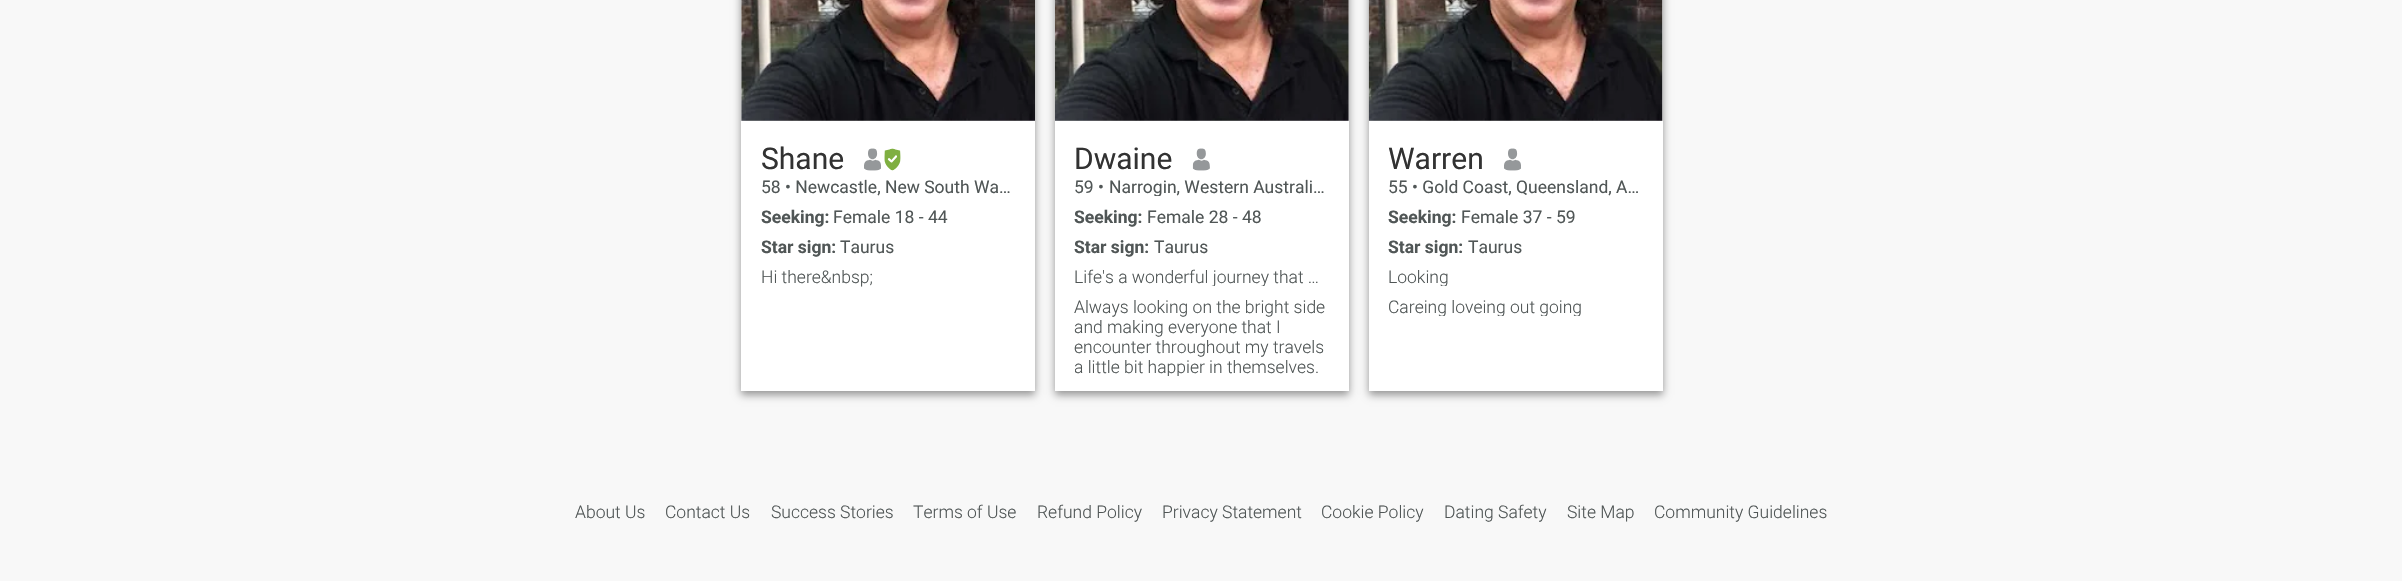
#include "include/core/SkBlurTypes.h"
#include "include/core/SkCanvas.h"
#include "include/core/SkData.h"
#include "include/core/SkFont.h"
#include "include/core/SkFontMgr.h"
#include "include/core/SkImage.h"
#include "include/core/SkMaskFilter.h"
#include "include/core/SkPaint.h"
#include "include/core/SkPathBuilder.h"
#include "include/core/SkTextBlob.h"
#include "include/effects/SkDashPathEffect.h"
#include "include/effects/SkGradientShader.h"
#include "include/utils/SkParsePath.h"

extern sk_sp<SkFontMgr> fontMgr;

void draw(SkCanvas* canvas) {
  SkPaint p;
  p.setAntiAlias(true);
  canvas->clear(SkColorSetRGB(248, 248, 248));
  p.setColor(SkColorSetARGB(102, 0, 0, 0));
  p.setMaskFilter(SkMaskFilter::MakeBlur(kNormal_SkBlurStyle, 4));
  canvas->drawRect(SkRect::MakeLTRB(741, -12, 1035, 395), p);
  p.setMaskFilter(nullptr);
  p.setColor(SK_ColorWHITE);
  canvas->drawRect(SkRect::MakeLTRB(741, 121, 1035, 391), p);
  p.setColor(SkColorSetRGB(224, 224, 224));
  canvas->drawRect(SkRect::MakeLTRB(741, 0, 1035, 121), p);
  canvas->drawImageRect(SkImages::DeferredFromEncodedData(SkData::MakeFromFileName("images/1.png")), SkRect::MakeLTRB(741, 0, 1035, 121), SkSamplingOptions());
  canvas->drawImageRect(SkImages::DeferredFromEncodedData(SkData::MakeFromFileName("images/2.png")), SkRect::MakeLTRB(864, 148, 881, 171), SkSamplingOptions());
  canvas->drawImageRect(SkImages::DeferredFromEncodedData(SkData::MakeFromFileName("images/3.png")), SkRect::MakeLTRB(884, 148, 901, 171), SkSamplingOptions());
  p.setColor(SkColorSetARGB(102, 0, 0, 0));
  p.setMaskFilter(SkMaskFilter::MakeBlur(kNormal_SkBlurStyle, 4));
  canvas->drawRect(SkRect::MakeLTRB(1055, -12, 1349, 395), p);
  p.setMaskFilter(nullptr);
  p.setColor(SK_ColorWHITE);
  canvas->drawRect(SkRect::MakeLTRB(1055, 121, 1349, 391), p);
  p.setColor(SkColorSetRGB(224, 224, 224));
  canvas->drawRect(SkRect::MakeLTRB(1055, 0, 1349, 121), p);
  canvas->drawImageRect(SkImages::DeferredFromEncodedData(SkData::MakeFromFileName("images/4.png")), SkRect::MakeLTRB(1055, 0, 1349, 121), SkSamplingOptions());
  canvas->drawImageRect(SkImages::DeferredFromEncodedData(SkData::MakeFromFileName("images/5.png")), SkRect::MakeLTRB(1192, 148, 1210, 171), SkSamplingOptions());
  p.setColor(SkColorSetARGB(102, 0, 0, 0));
  p.setMaskFilter(SkMaskFilter::MakeBlur(kNormal_SkBlurStyle, 4));
  canvas->drawRect(SkRect::MakeLTRB(1369, -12, 1663, 395), p);
  p.setMaskFilter(nullptr);
  p.setColor(SK_ColorWHITE);
  canvas->drawRect(SkRect::MakeLTRB(1369, 121, 1663, 391), p);
  p.setColor(SkColorSetRGB(224, 224, 224));
  canvas->drawRect(SkRect::MakeLTRB(1369, 0, 1663, 121), p);
  canvas->drawImageRect(SkImages::DeferredFromEncodedData(SkData::MakeFromFileName("images/6.png")), SkRect::MakeLTRB(1368, 0, 1663, 121), SkSamplingOptions());
  canvas->drawImageRect(SkImages::DeferredFromEncodedData(SkData::MakeFromFileName("images/2.png")), SkRect::MakeLTRB(1504, 148, 1521, 171), SkSamplingOptions());
  SkFont font1(fontMgr->matchFamilyStyle("Roboto", SkFontStyle::Normal()), 30);
  font1.setSubpixel(true);
  p.setColor(SkColorSetRGB(50, 50, 50));
  canvas->drawString("Shane", 761, 169, font1, p);
  SkFont font2(fontMgr->matchFamilyStyle("Roboto", SkFontStyle::Normal()), 17.5f);
  font2.setSubpixel(true);
  p.setColor(SkColorSetRGB(80, 86, 86));
  canvas->drawString("58 • Newcastle, New South Wa…", 761, 193, font2, p);
  SkFont font3(fontMgr->matchFamilyStyle("Roboto", SkFontStyle::Bold()), 17.5f);
  font3.setSubpixel(true);
  canvas->drawString("Seeking:", 761, 223, font3, p);
  canvas->drawString("Female 18 - 44", 833, 223, font2, p);
  canvas->drawString("Star sign:", 761, 253, font3, p);
  canvas->drawString("Taurus", 840, 253, font2, p);
  SkFont font4(fontMgr->matchFamilyStyle("Roboto", SkFontStyle(300, SkFontStyle::kNormal_Width, SkFontStyle::kUpright_Slant)), 17.5f);
  font4.setSubpixel(true);
  canvas->drawString("Hi there&nbsp;", 761, 283, font4, p);
  p.setColor(SkColorSetRGB(50, 50, 50));
  canvas->drawString("Dwaine", 1074, 169, font1, p);
  p.setColor(SkColorSetRGB(80, 86, 86));
  canvas->drawString("59 •", 1074, 193, font2, p);
  canvas->save();
  canvas->clipRect(SkRect::MakeLTRB(1075, 176, 1329, 196));
  canvas->drawString("Narrogin, Western Australi…", 1109, 193, font2, p);
  canvas->restore();
  canvas->drawString("Seeking:", 1074, 223, font3, p);
  canvas->drawString("Female 28 - 48", 1147, 223, font2, p);
  canvas->drawString("Star sign:", 1074, 253, font3, p);
  canvas->drawString("Taurus", 1154, 253, font2, p);
  canvas->save();
  canvas->clipRect(SkRect::MakeLTRB(1075, 266, 1329, 286));
  canvas->drawString("Life's a wonderful journey that …", 1074, 283, font4, p);
  canvas->restore();
  canvas->drawString("Always looking on the bright side", 1074, 313, font4, p);
  canvas->drawString("and making everyone that I", 1074, 333, font4, p);
  canvas->drawString("encounter throughout my travels", 1074, 353, font4, p);
  canvas->save();
  canvas->clipRect(SkRect::MakeLTRB(1075, 296, 1329, 376));
  canvas->drawString("a little bit happier in themselves.", 1074, 373, font4, p);
  canvas->restore();
  p.setColor(SkColorSetRGB(50, 50, 50));
  canvas->drawString("Warren", 1388, 169, font1, p);
  p.setColor(SkColorSetRGB(80, 86, 86));
  canvas->drawString("55 • Gold Coast, Queensland, A…", 1388, 193, font2, p);
  canvas->drawString("Seeking:", 1388, 223, font3, p);
  canvas->drawString("Female 37 - 59", 1461, 223, font2, p);
  canvas->drawString("Star sign:", 1388, 253, font3, p);
  canvas->drawString("Taurus", 1468, 253, font2, p);
  canvas->save();
  canvas->clipRect(SkRect::MakeLTRB(1389, 266, 1643, 286));
  canvas->drawString("Looking", 1388, 283, font4, p);
  canvas->restore();
  canvas->save();
  canvas->clipRect(SkRect::MakeLTRB(1389, 296, 1643, 316));
  canvas->drawString("Careing loveing out going", 1388, 313, font4, p);
  canvas->restore();
  canvas->drawString("About Us", 575, 518, font4, p);
  canvas->drawString("Contact Us", 665, 518, font4, p);
  canvas->drawString("Success Stories", 771, 518, font4, p);
  canvas->drawString("Terms of Use", 913, 518, font4, p);
  canvas->drawString("Refund Policy", 1037, 518, font4, p);
  canvas->drawString("Privacy Statement", 1162, 518, font4, p);
  canvas->drawString("Cookie Policy", 1321, 518, font4, p);
  canvas->drawString("Dating Safety", 1444, 518, font4, p);
  canvas->drawString("Site Map", 1567, 518, font4, p);
  canvas->drawString("Community Guidelines", 1654, 518, font4, p);
}
